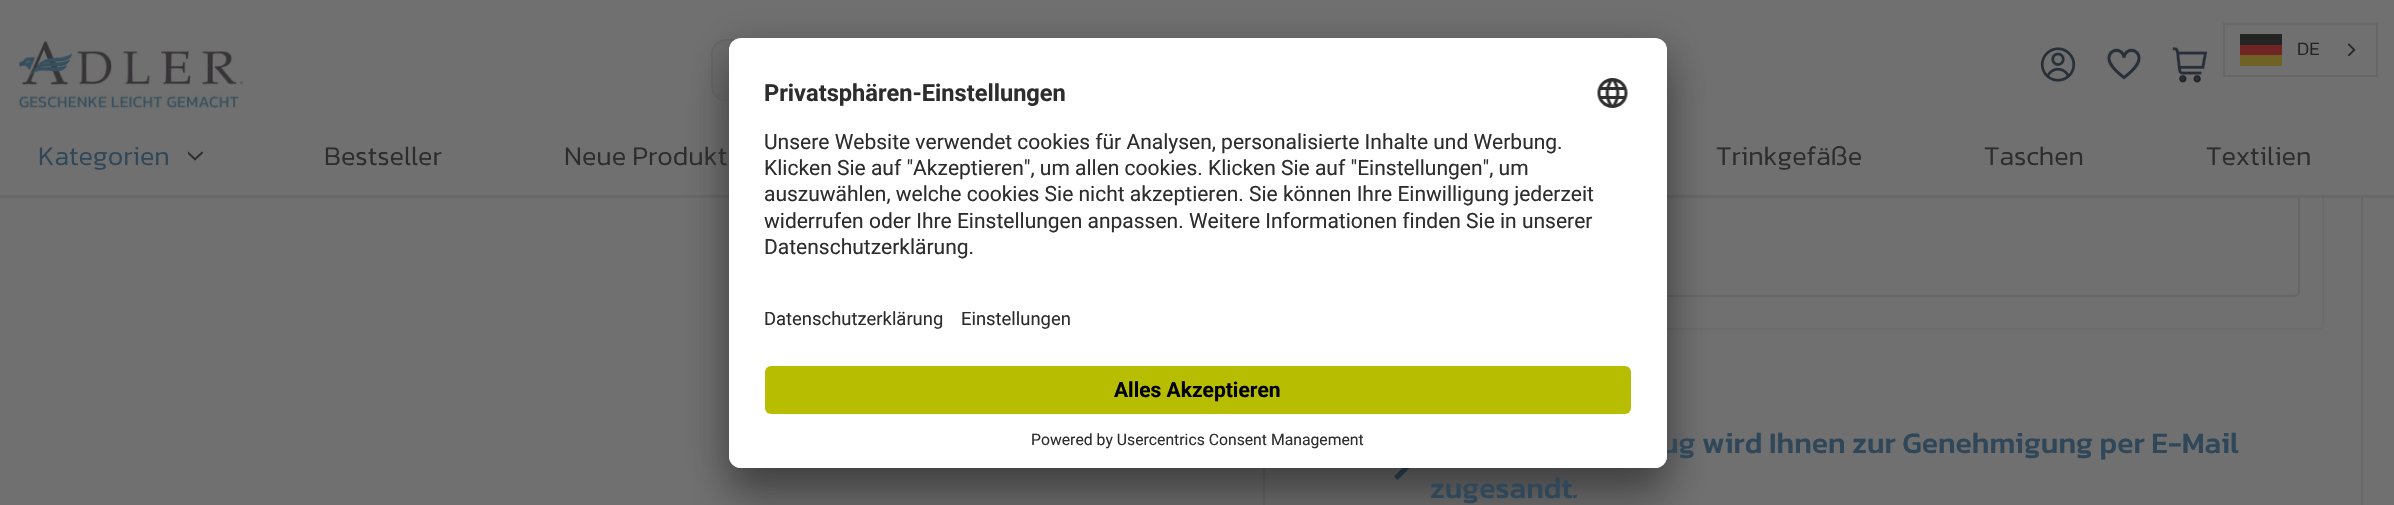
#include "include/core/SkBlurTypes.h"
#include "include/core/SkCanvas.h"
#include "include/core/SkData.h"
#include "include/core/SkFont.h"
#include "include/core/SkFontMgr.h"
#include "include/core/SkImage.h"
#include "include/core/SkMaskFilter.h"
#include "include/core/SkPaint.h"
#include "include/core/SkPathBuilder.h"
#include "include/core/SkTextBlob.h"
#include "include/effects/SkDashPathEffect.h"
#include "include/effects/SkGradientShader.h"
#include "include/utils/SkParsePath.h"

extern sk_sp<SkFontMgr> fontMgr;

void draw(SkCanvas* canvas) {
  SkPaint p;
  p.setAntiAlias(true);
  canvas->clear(SkColorSetRGB(112, 112, 112));
  p.setStyle(SkPaint::kStroke_Style);
  p.setStrokeWidth(2);
  p.setColor(SkColorSetRGB(104, 104, 106));
  canvas->drawRect(SkRect::MakeLTRB(1264, -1, 2362, 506), p);
  p.setColor(SkColorSetRGB(107, 107, 107));
  canvas->drawRoundRect(SkRect::MakeLTRB(1374, 61, 2323, 329), 5, 5, p);
  p.setColor(SkColorSetRGB(102, 102, 102));
  canvas->drawRoundRect(SkRect::MakeLTRB(1398, 148, 2299, 296), 5, 5, p);
  p.setStyle(SkPaint::kFill_Style);
  p.setColor(SkColorSetRGB(112, 112, 112));
  canvas->drawRect(SkRect::MakeLTRB(1263, 0, 2363, 195), p);
  p.setColor(SkColorSetRGB(104, 104, 104));
  canvas->drawRect(SkRect::MakeLTRB(0, 195, 2394, 198), p);
  canvas->drawImageRect(SkImages::DeferredFromEncodedData(SkData::MakeFromFileName("images/1.png")), SkRect::MakeLTRB(15, 40, 244, 109), SkSamplingOptions());
  p.setStyle(SkPaint::kStroke_Style);
  p.setColor(SkColorSetRGB(104, 104, 106));
  canvas->drawRoundRect(SkRect::MakeLTRB(712, 40, 1610, 100), 14, 14, p);
  p.setStyle(SkPaint::kFill_Style);
  p.setColor(SkColorSetRGB(110, 110, 111));
  canvas->drawRoundRect(SkRect::MakeLTRB(713, 41, 1610, 101), 15, 15, p);
  canvas->drawImageRect(SkImages::DeferredFromEncodedData(SkData::MakeFromFileName("images/2.png")), SkRect::MakeLTRB(2040, 47, 2076, 82), SkSamplingOptions());
  canvas->drawImageRect(SkImages::DeferredFromEncodedData(SkData::MakeFromFileName("images/3.png")), SkRect::MakeLTRB(2107, 48, 2141, 80), SkSamplingOptions());
  canvas->drawImageRect(SkImages::DeferredFromEncodedData(SkData::MakeFromFileName("images/4.png")), SkRect::MakeLTRB(2172, 47, 2208, 83), SkSamplingOptions());
  p.setStyle(SkPaint::kStroke_Style);
  p.setColor(SkColorSetRGB(103, 103, 103));
  canvas->drawRect(SkRect::MakeLTRB(2224, 24, 2377, 76), p);
  p.setStyle(SkPaint::kFill_Style);
  p.setColor(SkColorSetRGB(112, 97, 36));
  canvas->drawRect(SkRect::MakeLTRB(2240, 55, 2282, 66), p);
  p.setColor(SkColorSetRGB(36, 36, 36));
  canvas->drawRect(SkRect::MakeLTRB(2240, 34, 2282, 45), p);
  p.setColor(SkColorSetRGB(112, 36, 36));
  canvas->drawRect(SkRect::MakeLTRB(2240, 45, 2282, 55), p);
  canvas->drawImageRect(SkImages::DeferredFromEncodedData(SkData::MakeFromFileName("images/5.png")), SkRect::MakeLTRB(2347, 43, 2356, 56), SkSamplingOptions());
  canvas->drawImageRect(SkImages::DeferredFromEncodedData(SkData::MakeFromFileName("images/6.png")), SkRect::MakeLTRB(188, 151, 203, 161), SkSamplingOptions());
  p.setColor(SkColorSetRGB(47, 71, 88));
  canvas->drawPath(SkPathBuilder().moveTo(1397.5f, 450).lineTo(1394, 453.5f).lineTo(1405.5f, 465).lineTo(1394, 476.5f).lineTo(1397.5f, 480).lineTo(1412.5f, 465).close().detach(), p);
  p.setColor(SkColorSetARGB(77, 0, 0, 0));
  p.setMaskFilter(SkMaskFilter::MakeBlur(kNormal_SkBlurStyle, 21));
  canvas->drawRoundRect(SkRect::MakeLTRB(729, 68, 1667, 498), 12, 12, p);
  p.setMaskFilter(nullptr);
  p.setColor(SkColorSetARGB(56, 0, 0, 0));
  p.setMaskFilter(SkMaskFilter::MakeBlur(kNormal_SkBlurStyle, 19.5f));
  canvas->drawRoundRect(SkRect::MakeLTRB(729, 45, 1667, 476), 12, 12, p);
  p.setMaskFilter(nullptr);
  SkFont font1(fontMgr->matchFamilyStyle("Kanit", SkFontStyle(300, SkFontStyle::kNormal_Width, SkFontStyle::kUpright_Slant)), 19);
  font1.setSubpixel(true);
  p.setColor(SkColorSetRGB(36, 36, 36));
  canvas->drawString("DE", 2297, 55, font1, p);
  SkFont font2(fontMgr->matchFamilyStyle("Kanit", SkFontStyle(300, SkFontStyle::kNormal_Width, SkFontStyle::kUpright_Slant)), 27);
  font2.setSubpixel(true);
  p.setColor(SkColorSetRGB(47, 71, 88));
  canvas->drawString("Kategorien", 38, 165, font2, p);
  p.setColor(SkColorSetRGB(45, 45, 45));
  canvas->drawString("Bestseller", 324, 165, font2, p);
  canvas->drawString("Neue Produkt", 564, 165, font2, p);
  canvas->drawString("Trinkgefäße", 1716, 165, font2, p);
  canvas->drawString("Taschen", 1984, 165, font2, p);
  canvas->drawString("Textilien", 2206, 165, font2, p);
  SkFont font3(fontMgr->matchFamilyStyle("Kanit", SkFontStyle(500, SkFontStyle::kNormal_Width, SkFontStyle::kUpright_Slant)), 30);
  font3.setSubpixel(true);
  p.setColor(SkColorSetRGB(47, 71, 88));
  canvas->drawString("ug wird Ihnen zur Genehmigung per E-Mail", 1661, 453, font3, p);
  p.setColor(SK_ColorWHITE);
  canvas->drawRoundRect(SkRect::MakeLTRB(729, 38, 1667, 468), 12, 12, p);
  canvas->save();
  canvas->clipPath(SkPathBuilder().moveTo(741, 38).lineTo(1655, 38).cubicTo(1661.5f, 38, 1667, 43.5f, 1667, 50).lineTo(1667, 456).cubicTo(1667, 462.5f, 1661.5f, 468, 1655, 468).lineTo(741, 468).cubicTo(734.5f, 468, 729, 462.5f, 729, 456).lineTo(729, 50).cubicTo(729, 43.5f, 734.5f, 38, 741, 38).close().detach(), true);
  canvas->clipPath(SkPathBuilder().moveTo(741, 38).lineTo(1655, 38).cubicTo(1661.5f, 38, 1667, 43.5f, 1667, 50).lineTo(1667, 354).lineTo(729, 354).lineTo(729, 50).cubicTo(729, 43.5f, 734.5f, 38, 741, 38).close().detach(), true);
  canvas->drawRect(SkRect::MakeLTRB(729, 39, 1667, 354), p);
  canvas->restore();
  canvas->drawImageRect(SkImages::DeferredFromEncodedData(SkData::MakeFromFileName("images/7.png")), SkRect::MakeLTRB(1597, 78, 1628, 108), SkSamplingOptions());
  SkFont font4(fontMgr->matchFamilyStyle("Roboto", SkFontStyle::Normal()), 18.4f);
  font4.setSubpixel(true);
  p.setColor(SkColorSetRGB(45, 45, 45));
  canvas->drawString("Datenschutzerklärung", 764, 325, font4, p);
  SkFont font5(fontMgr->matchFamilyStyle("Roboto", SkFontStyle::Bold()), 23.6f);
  font5.setSubpixel(true);
  canvas->drawString("Privatsphären-Einstellungen", 764, 101, font5, p);
  SkFont font6(fontMgr->matchFamilyStyle("Roboto", SkFontStyle::Normal()), 21);
  font6.setSubpixel(true);
  canvas->drawString("Datenschutzerklärung.", 764, 254, font6, p);
  canvas->drawString("widerrufen oder Ihre Einstellungen anpassen. Weitere Informationen finden Sie in unserer", 764, 228, font6, p);
  canvas->drawString("auszuwählen, welche cookies Sie nicht akzeptieren. Sie können Ihre Einwilligung jederzeit", 764, 201, font6, p);
  canvas->drawString("Klicken Sie auf \"Akzeptieren\", um allen cookies. Klicken Sie auf \"Einstellungen\", um", 764, 175, font6, p);
  canvas->drawString("Unsere Website verwendet cookies für Analysen, personalisierte Inhalte und Werbung.", 764, 149, font6, p);
  canvas->drawString("Einstellungen", 961, 325, font4, p);
  p.setColor(SK_ColorWHITE);
  canvas->drawPath(SkPathBuilder().moveTo(729, 354).lineTo(1667, 354).lineTo(1667, 456).cubicTo(1667, 462.5f, 1661.5f, 468, 1655, 468).lineTo(741, 468).cubicTo(734.5f, 468, 729, 462.5f, 729, 456).close().detach(), p);
  SkFont font7(fontMgr->matchFamilyStyle("Roboto", SkFontStyle::Normal()), 15.75f);
  font7.setSubpixel(true);
  p.setColor(SkColorSetRGB(45, 45, 45));
  canvas->drawString("Powered by Usercentrics Consent Management", 1031, 445, font7, p);
  p.setColor(SkColorSetRGB(183, 189, 0));
  canvas->drawRoundRect(SkRect::MakeLTRB(765, 366, 1631, 414), 6, 6, p);
  SkFont font8(fontMgr->matchFamilyStyle("Roboto", SkFontStyle::Bold()), 21);
  font8.setSubpixel(true);
  p.setColor(SK_ColorBLACK);
  canvas->drawString("Alles Akzeptieren", 1114, 397, font8, p);
  p.setColor(SkColorSetRGB(47, 71, 88));
  canvas->drawString("zugesandt.", 1430, 498, font3, p);
}
